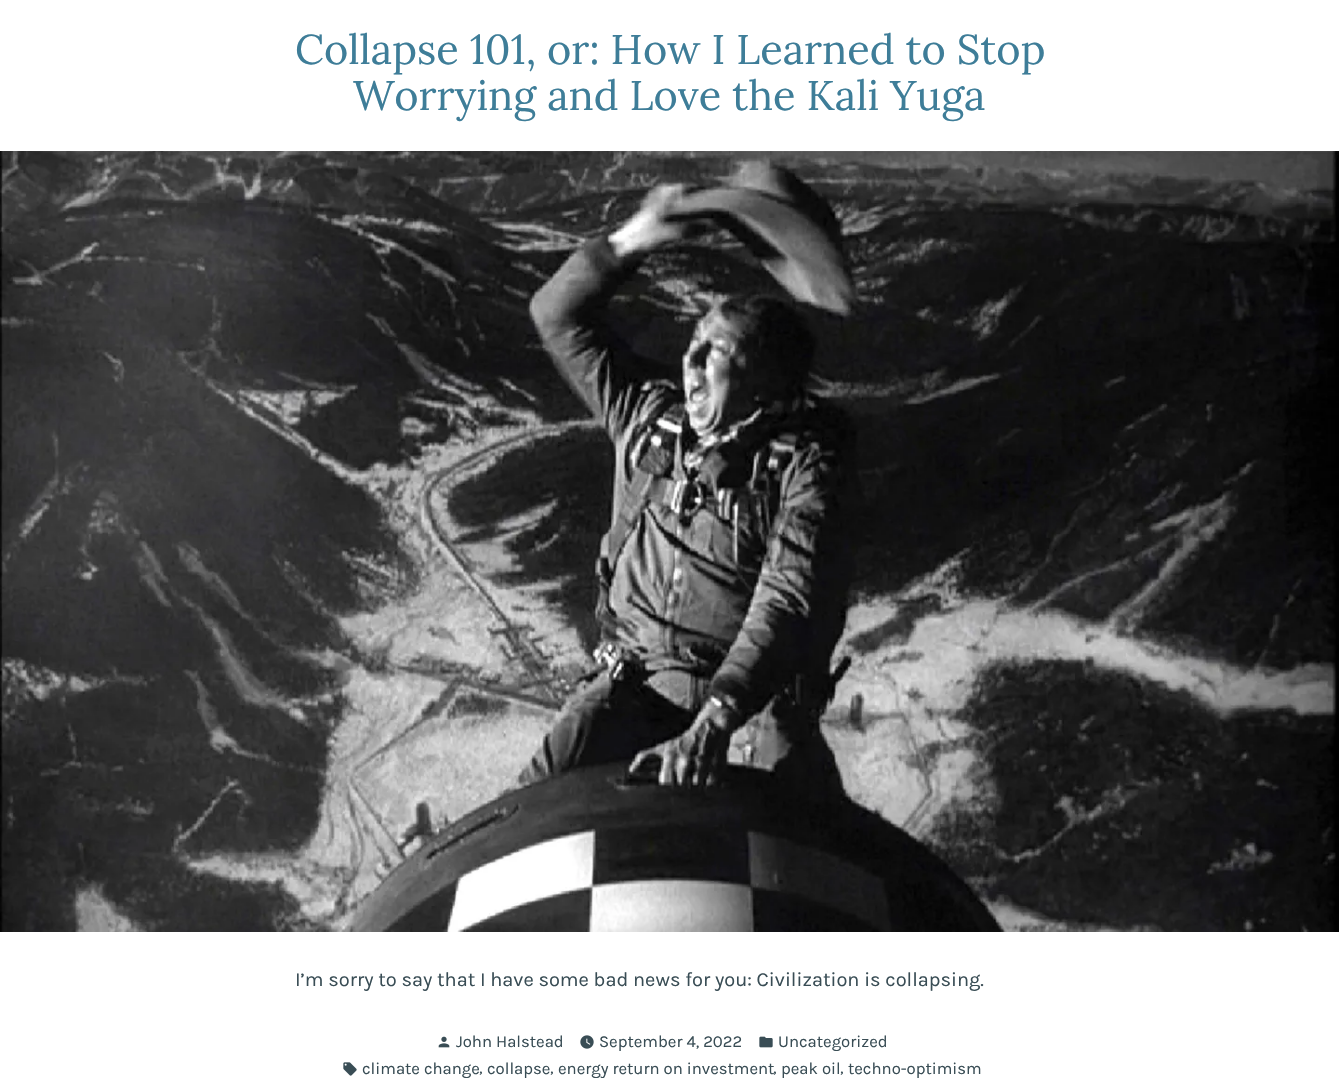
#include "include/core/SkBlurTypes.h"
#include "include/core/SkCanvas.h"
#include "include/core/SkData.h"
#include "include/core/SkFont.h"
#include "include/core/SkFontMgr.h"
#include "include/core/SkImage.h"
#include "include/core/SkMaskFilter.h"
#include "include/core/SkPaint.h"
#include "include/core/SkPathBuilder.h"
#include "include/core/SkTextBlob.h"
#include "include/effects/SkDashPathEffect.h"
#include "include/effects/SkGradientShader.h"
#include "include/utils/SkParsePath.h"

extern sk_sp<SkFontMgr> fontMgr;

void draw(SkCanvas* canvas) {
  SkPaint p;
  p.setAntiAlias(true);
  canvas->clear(SK_ColorWHITE);
  canvas->drawImageRect(SkImages::DeferredFromEncodedData(SkData::MakeFromFileName("images/1.png")), SkRect::MakeLTRB(0, 151, 1339, 932), SkSamplingOptions());
  canvas->drawImageRect(SkImages::DeferredFromEncodedData(SkData::MakeFromFileName("images/2.png")), SkRect::MakeLTRB(438, 1036, 450, 1048), SkSamplingOptions());
  canvas->drawImageRect(SkImages::DeferredFromEncodedData(SkData::MakeFromFileName("images/3.png")), SkRect::MakeLTRB(580, 1035, 594, 1049), SkSamplingOptions());
  canvas->drawImageRect(SkImages::DeferredFromEncodedData(SkData::MakeFromFileName("images/4.png")), SkRect::MakeLTRB(759, 1036, 773, 1048), SkSamplingOptions());
  canvas->drawImageRect(SkImages::DeferredFromEncodedData(SkData::MakeFromFileName("images/5.png")), SkRect::MakeLTRB(343, 1062, 357, 1076), SkSamplingOptions());
  SkFont font1(fontMgr->matchFamilyStyle("Lora", SkFontStyle::Normal()), 41.5f);
  font1.setSubpixel(true);
  p.setColor(SkColorSetRGB(62, 125, 152));
  canvas->drawString("Collapse 101, or: How I Learned to Stop", 295, 64, font1, p);
  canvas->drawString("Worrying and Love the Kali Yuga", 353, 110, font1, p);
  SkFont font2(fontMgr->matchFamilyStyle("Karla", SkFontStyle::Normal()), 20);
  font2.setSubpixel(true);
  p.setColor(SkColorSetRGB(57, 77, 85));
  canvas->drawString("I’m sorry to say that I have some bad news for you: Civilization is collapsing.", 295, 986, font2, p);
  SkFont font3(fontMgr->matchFamilyStyle("Karla", SkFontStyle::Normal()), 16.7f);
  font3.setSubpixel(true);
  canvas->drawString("John Halstead", 456, 1047, font3, p);
  canvas->drawString("September 4, 2022", 599, 1047, font3, p);
  canvas->drawString("Uncategorized", 778, 1047, font3, p);
  canvas->drawString("climate change", 362, 1074, font3, p);
  canvas->drawString(",", 479, 1073, font3, p);
  canvas->drawString("collapse", 487, 1074, font3, p);
  canvas->drawString(",", 550, 1073, font3, p);
  canvas->drawString("energy return on investment", 558, 1074, font3, p);
  canvas->drawString(",", 773, 1073, font3, p);
  canvas->drawString("peak oil", 781, 1074, font3, p);
  canvas->drawString(",", 840, 1073, font3, p);
  canvas->drawString("techno-optimism", 848, 1074, font3, p);
}
